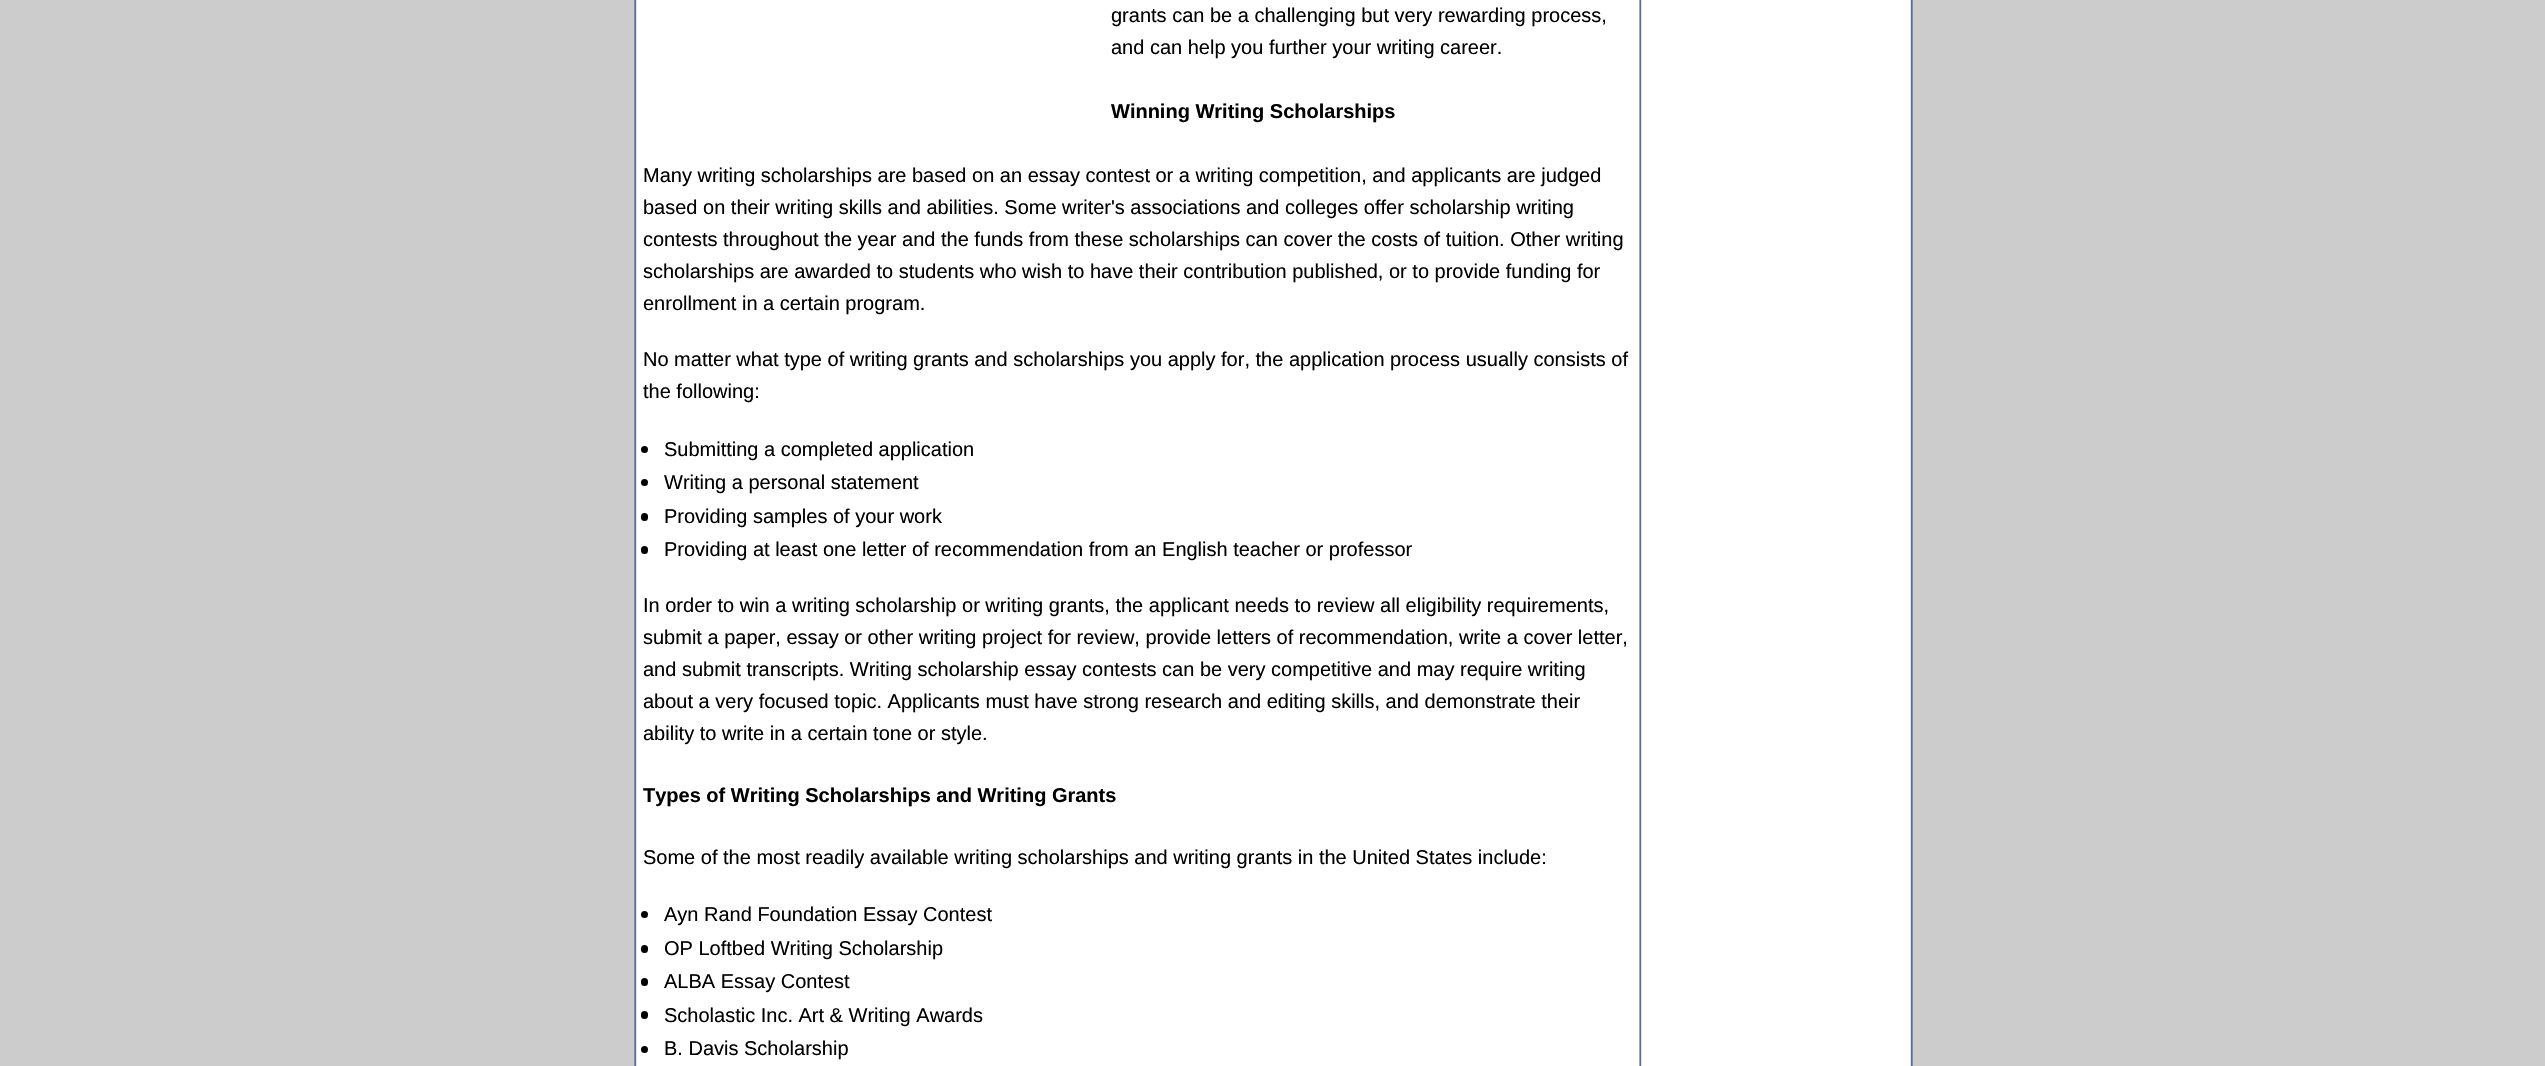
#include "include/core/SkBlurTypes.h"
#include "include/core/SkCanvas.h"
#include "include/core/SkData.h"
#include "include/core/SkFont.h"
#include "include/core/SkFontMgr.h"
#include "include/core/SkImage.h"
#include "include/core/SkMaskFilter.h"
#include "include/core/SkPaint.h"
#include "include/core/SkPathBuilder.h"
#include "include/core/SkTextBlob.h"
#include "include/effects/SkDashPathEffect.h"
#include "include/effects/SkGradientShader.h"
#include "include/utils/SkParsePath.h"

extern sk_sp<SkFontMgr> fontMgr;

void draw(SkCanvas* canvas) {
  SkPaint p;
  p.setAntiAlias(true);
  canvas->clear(SkColorSetRGB(204, 204, 204));
  canvas->drawImageRect(SkImages::DeferredFromEncodedData(SkData::MakeFromFileName("images/1.png")), SkRect::MakeLTRB(634, 0, 1913, 1066), SkSamplingOptions());
  p.setColor(SK_ColorBLACK);
  canvas->drawCircle(644.5f, 449.5f, 3.5f, p);
  canvas->drawCircle(644.5f, 482.5f, 3.5f, p);
  canvas->drawRoundRect(SkRect::MakeLTRB(641, 513, 648, 521), 3.5f, 3.5f, p);
  canvas->drawRoundRect(SkRect::MakeLTRB(641, 546, 648, 554), 3.5f, 3.5f, p);
  canvas->drawCircle(644.5f, 914.5f, 3.5f, p);
  canvas->drawRoundRect(SkRect::MakeLTRB(641, 945, 648, 953), 3.5f, 3.5f, p);
  canvas->drawRoundRect(SkRect::MakeLTRB(641, 978, 648, 986), 3.5f, 3.5f, p);
  canvas->drawRoundRect(SkRect::MakeLTRB(641, 1011, 648, 1019), 3.5f, 3.5f, p);
  canvas->drawCircle(644.5f, 1049.5f, 3.5f, p);
  SkFont font1(fontMgr->matchFamilyStyle("Liberation Sans", SkFontStyle::Normal()), 20);
  font1.setSubpixel(true);
  canvas->drawString("grants can be a challenging but very rewarding process,", 1111, 22, font1, p);
  canvas->drawString("and can help you further your writing career.", 1111, 54, font1, p);
  SkFont font2(fontMgr->matchFamilyStyle("Liberation Sans", SkFontStyle::Bold()), 20);
  font2.setSubpixel(true);
  canvas->drawString("Winning Writing Scholarships", 1111, 118, font2, p);
  canvas->drawString("Many writing scholarships are based on an essay contest or a writing competition, and applicants are judged", 643, 182, font1, p);
  canvas->drawString("based on their writing skills and abilities. Some writer's associations and colleges offer scholarship writing", 643, 214, font1, p);
  canvas->drawString("contests throughout the year and the funds from these scholarships can cover the costs of tuition. Other writing", 643, 246, font1, p);
  canvas->drawString("scholarships are awarded to students who wish to have their contribution published, or to provide funding for", 643, 278, font1, p);
  canvas->drawString("enrollment in a certain program.", 643, 310, font1, p);
  canvas->drawString("No matter what type of writing grants and scholarships you apply for, the application process usually consists of", 643, 366, font1, p);
  canvas->drawString("the following:", 643, 398, font1, p);
  canvas->drawString("Submitting a completed application", 664, 456, font1, p);
  canvas->drawString("Writing a personal statement", 664, 489, font1, p);
  canvas->drawString("Providing samples of your work", 664, 523, font1, p);
  canvas->drawString("Providing at least one letter of recommendation from an English teacher or professor", 664, 556, font1, p);
  canvas->drawString("In order to win a writing scholarship or writing grants, the applicant needs to review all eligibility requirements,", 643, 612, font1, p);
  canvas->drawString("submit a paper, essay or other writing project for review, provide letters of recommendation, write a cover letter,", 643, 644, font1, p);
  canvas->drawString("and submit transcripts. Writing scholarship essay contests can be very competitive and may require writing", 643, 676, font1, p);
  canvas->drawString("about a very focused topic. Applicants must have strong research and editing skills, and demonstrate their", 643, 708, font1, p);
  canvas->drawString("ability to write in a certain tone or style.", 643, 740, font1, p);
  canvas->drawString("Types of Writing Scholarships and Writing Grants", 643, 802, font2, p);
  canvas->drawString("Some of the most readily available writing scholarships and writing grants in the United States include:", 643, 864, font1, p);
  canvas->drawString("Ayn Rand Foundation Essay Contest", 664, 921, font1, p);
  canvas->drawString("OP Loftbed Writing Scholarship", 664, 955, font1, p);
  canvas->drawString("ALBA Essay Contest", 664, 988, font1, p);
  canvas->drawString("Scholastic Inc. Art & Writing Awards", 664, 1022, font1, p);
  canvas->drawString("B. Davis Scholarship", 664, 1055, font1, p);
}
